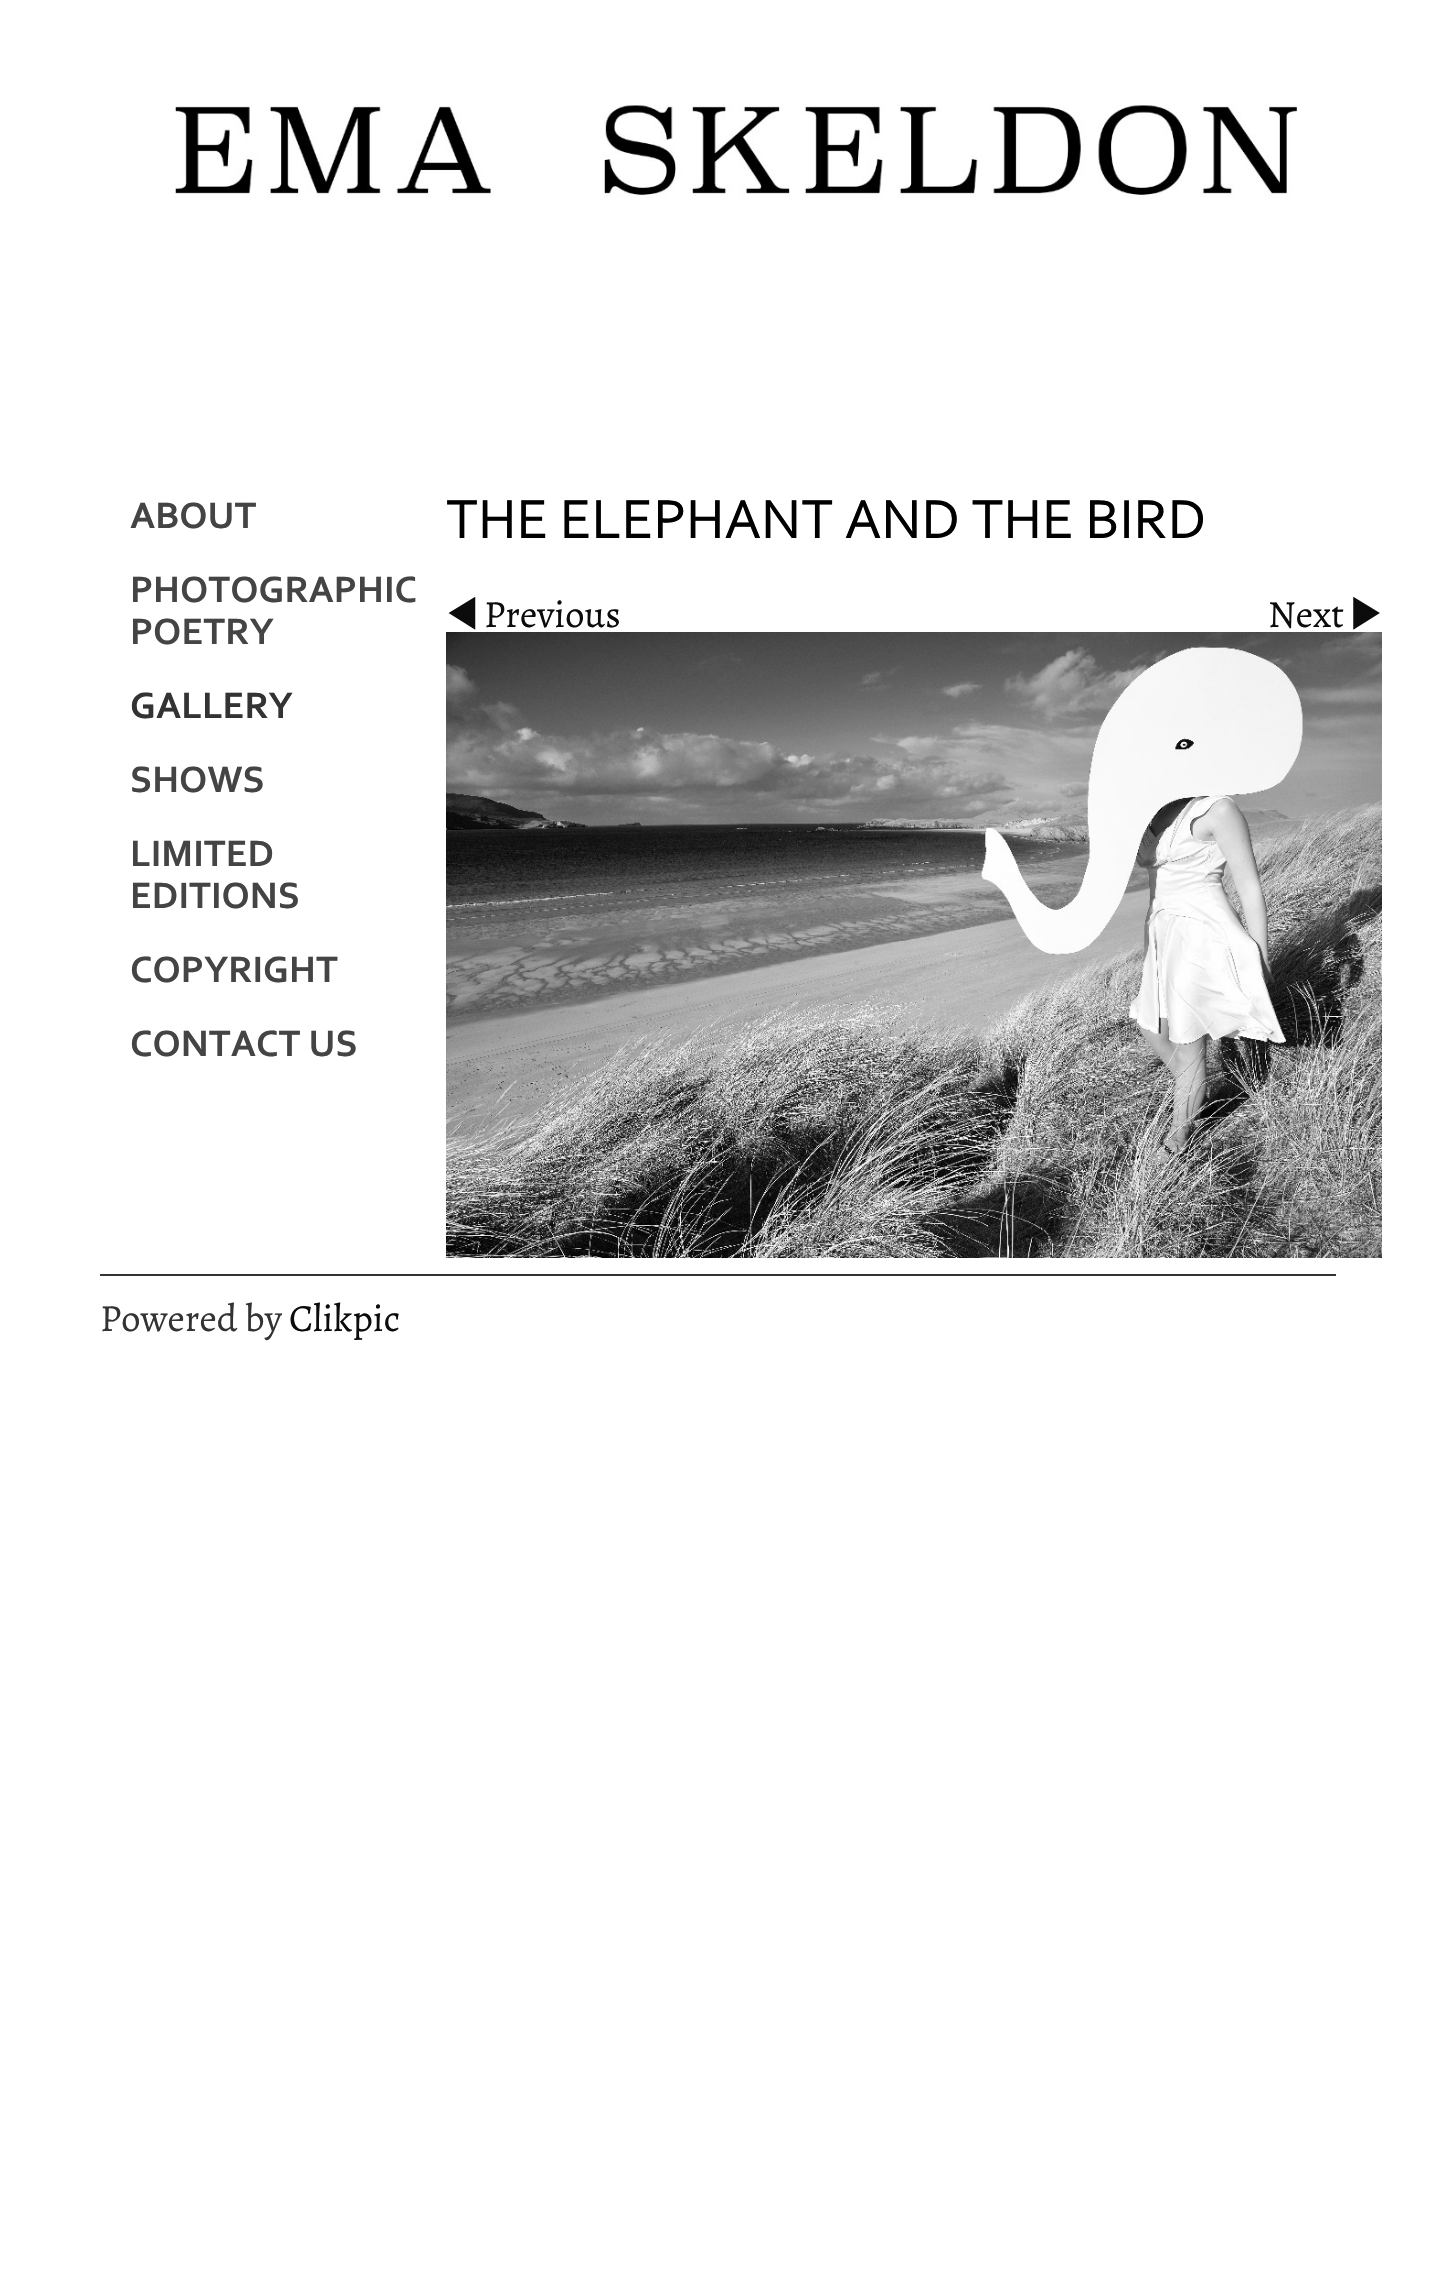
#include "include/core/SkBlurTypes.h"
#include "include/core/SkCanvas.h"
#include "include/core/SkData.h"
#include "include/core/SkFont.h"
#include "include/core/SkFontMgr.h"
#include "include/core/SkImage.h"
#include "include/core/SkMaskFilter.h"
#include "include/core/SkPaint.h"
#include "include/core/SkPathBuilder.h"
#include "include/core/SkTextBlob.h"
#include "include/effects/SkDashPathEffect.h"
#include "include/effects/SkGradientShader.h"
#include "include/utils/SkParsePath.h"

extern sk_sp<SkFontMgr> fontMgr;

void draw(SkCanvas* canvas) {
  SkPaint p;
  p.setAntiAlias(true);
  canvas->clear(SK_ColorWHITE);
  canvas->drawImageRect(SkImages::DeferredFromEncodedData(SkData::MakeFromFileName("images/1.png")), SkRect::MakeLTRB(175, 105, 1297, 198), SkSamplingOptions());
  p.setColor(SkColorSetRGB(12, 12, 13));
  canvas->drawPath(SkPathBuilder().moveTo(474.5f, 598).lineTo(474.5f, 628.5f).lineTo(450, 613).close().detach(), p);
  p.setStyle(SkPaint::kStroke_Style);
  p.setStrokeWidth(1.5f);
  canvas->drawPath(SkPathBuilder().moveTo(474.5f, 598).lineTo(474.5f, 628.5f).lineTo(450, 613).close().detach(), p);
  p.setStyle(SkPaint::kFill_Style);
  canvas->drawPath(SkPathBuilder().moveTo(1354, 598).lineTo(1354, 628.5f).lineTo(1378.5f, 613).close().detach(), p);
  p.setStyle(SkPaint::kStroke_Style);
  canvas->drawPath(SkPathBuilder().moveTo(1354, 598).lineTo(1354, 628.5f).lineTo(1378.5f, 613).close().detach(), p);
  canvas->drawImageRect(SkImages::DeferredFromEncodedData(SkData::MakeFromFileName("images/2.png")), SkRect::MakeLTRB(446, 632, 1382, 1258), SkSamplingOptions());
  p.setStyle(SkPaint::kFill_Style);
  p.setColor(SkColorSetRGB(51, 51, 51));
  canvas->drawRect(SkRect::MakeLTRB(100, 1274, 1336, 1276), p);
  SkFont font1(fontMgr->matchFamilyStyle("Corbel", SkFontStyle::Bold()), 38.5f);
  font1.setSubpixel(true);
  p.setColor(SkColorSetRGB(68, 68, 68));
  canvas->drawString("ABOUT", 130, 528, font1, p);
  canvas->drawString("PHOTOGRAPHIC", 130, 602, font1, p);
  canvas->drawString("POETRY", 130, 644, font1, p);
  p.setColor(SkColorSetRGB(51, 51, 51));
  canvas->drawString("GALLERY", 130, 718, font1, p);
  p.setColor(SkColorSetRGB(68, 68, 68));
  canvas->drawString("SHOWS", 130, 792, font1, p);
  canvas->drawString("LIMITED", 130, 866, font1, p);
  canvas->drawString("EDITIONS", 130, 908, font1, p);
  canvas->drawString("COPYRIGHT", 130, 982, font1, p);
  canvas->drawString("CONTACT US", 130, 1056, font1, p);
  SkFont font2(fontMgr->matchFamilyStyle("Corbel", SkFontStyle::Normal()), 57.6f);
  font2.setSubpixel(true);
  p.setColor(SK_ColorBLACK);
  canvas->drawString("THE ELEPHANT AND THE BIRD", 446, 538, font2, p);
  SkFont font3(fontMgr->matchFamilyStyle("Alegreya", SkFontStyle::Normal()), 38.5f);
  font3.setSubpixel(true);
  p.setColor(SkColorSetRGB(12, 12, 13));
  canvas->drawString("Previous", 484, 627, font3, p);
  canvas->drawString("Next", 1268, 627, font3, p);
  p.setColor(SkColorSetRGB(51, 51, 51));
  canvas->drawString("Powered by", 100, 1331, font3, p);
  p.setColor(SkColorSetRGB(12, 12, 13));
  canvas->drawString("Clikpic", 289, 1331, font3, p);
}
